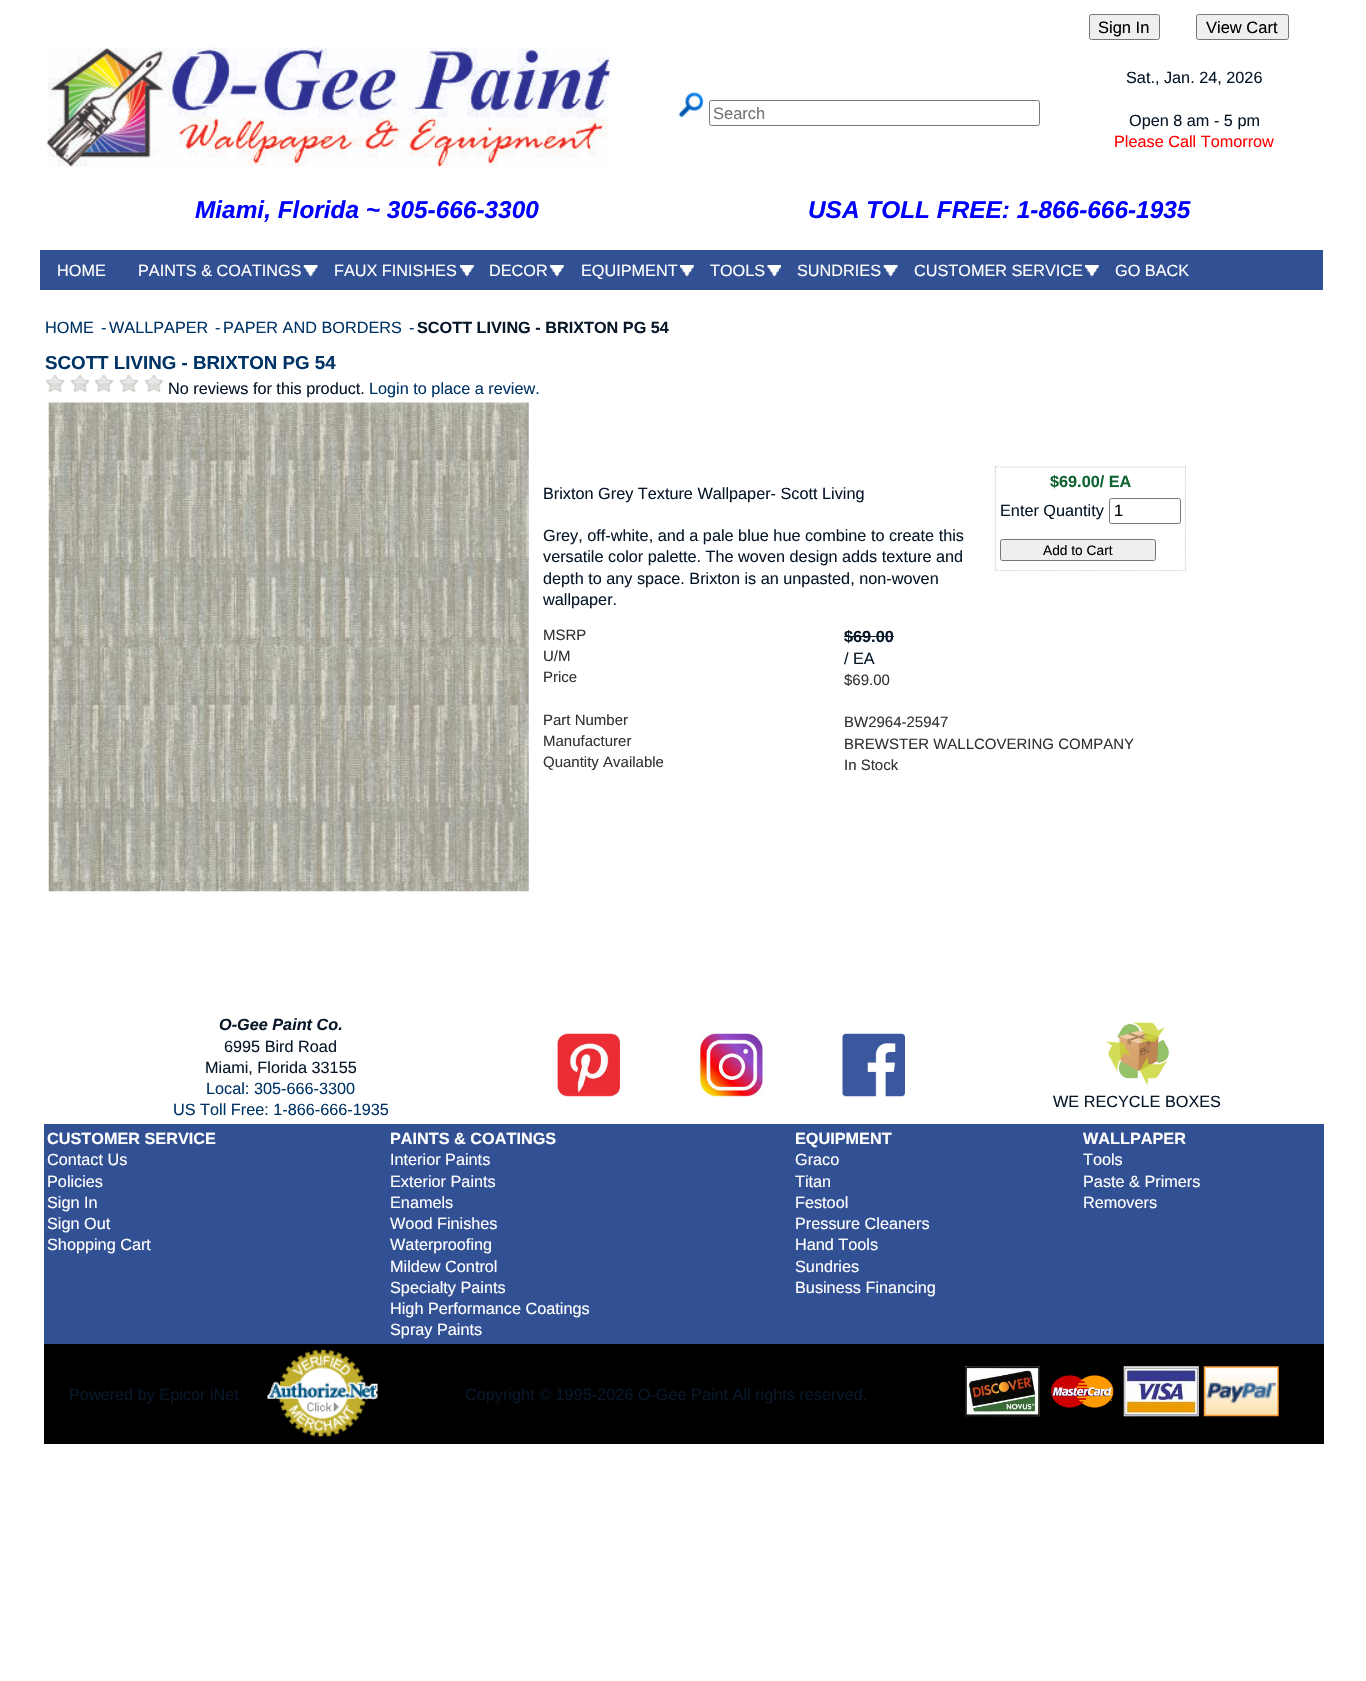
#include "include/core/SkBlurTypes.h"
#include "include/core/SkCanvas.h"
#include "include/core/SkData.h"
#include "include/core/SkFont.h"
#include "include/core/SkFontMgr.h"
#include "include/core/SkImage.h"
#include "include/core/SkMaskFilter.h"
#include "include/core/SkPaint.h"
#include "include/core/SkPathBuilder.h"
#include "include/core/SkTextBlob.h"
#include "include/effects/SkDashPathEffect.h"
#include "include/effects/SkGradientShader.h"
#include "include/utils/SkParsePath.h"

extern sk_sp<SkFontMgr> fontMgr;

void draw(SkCanvas* canvas) {
  SkPaint p;
  p.setAntiAlias(true);
  canvas->clear(SK_ColorWHITE);
  p.setColor(SkColorSetRGB(239, 239, 239));
  canvas->drawRoundRect(SkRect::MakeLTRB(1089.5f, 14.5f, 1159.5f, 39.5f), 2, 2, p);
  p.setStyle(SkPaint::kStroke_Style);
  p.setStrokeWidth(1);
  p.setColor(SkColorSetRGB(118, 118, 118));
  canvas->drawRoundRect(SkRect::MakeLTRB(1089.5f, 14.5f, 1159.5f, 39.5f), 2, 2, p);
  p.setStyle(SkPaint::kFill_Style);
  p.setColor(SkColorSetRGB(239, 239, 239));
  canvas->drawRoundRect(SkRect::MakeLTRB(1196.5f, 14.5f, 1288.5f, 39.5f), 2, 2, p);
  p.setStyle(SkPaint::kStroke_Style);
  p.setColor(SkColorSetRGB(118, 118, 118));
  canvas->drawRoundRect(SkRect::MakeLTRB(1196.5f, 14.5f, 1288.5f, 39.5f), 2, 2, p);
  canvas->drawImageRect(SkImages::DeferredFromEncodedData(SkData::MakeFromFileName("images/1.png")), SkRect::MakeLTRB(47, 47, 610, 167), SkSamplingOptions());
  canvas->drawImageRect(SkImages::DeferredFromEncodedData(SkData::MakeFromFileName("images/2.png")), SkRect::MakeLTRB(678, 92, 704, 118), SkSamplingOptions());
  canvas->drawRoundRect(SkRect::MakeLTRB(709.5f, 100.5f, 1039.5f, 125.5f), 2, 2, p);
  p.setStyle(SkPaint::kFill_Style);
  p.setColor(SkColorSetRGB(50, 80, 148));
  canvas->drawRect(SkRect::MakeLTRB(40, 250, 1323, 290), p);
  canvas->drawImageRect(SkImages::DeferredFromEncodedData(SkData::MakeFromFileName("images/3.png")), SkRect::MakeLTRB(303, 265, 318, 277), SkSamplingOptions());
  canvas->drawImageRect(SkImages::DeferredFromEncodedData(SkData::MakeFromFileName("images/4.png")), SkRect::MakeLTRB(460, 265, 474, 277), SkSamplingOptions());
  canvas->drawImageRect(SkImages::DeferredFromEncodedData(SkData::MakeFromFileName("images/4.png")), SkRect::MakeLTRB(550, 265, 564, 277), SkSamplingOptions());
  canvas->drawImageRect(SkImages::DeferredFromEncodedData(SkData::MakeFromFileName("images/4.png")), SkRect::MakeLTRB(680, 265, 694, 277), SkSamplingOptions());
  canvas->drawImageRect(SkImages::DeferredFromEncodedData(SkData::MakeFromFileName("images/5.png")), SkRect::MakeLTRB(767, 265, 781, 277), SkSamplingOptions());
  canvas->drawImageRect(SkImages::DeferredFromEncodedData(SkData::MakeFromFileName("images/6.png")), SkRect::MakeLTRB(883, 265, 898, 277), SkSamplingOptions());
  canvas->drawImageRect(SkImages::DeferredFromEncodedData(SkData::MakeFromFileName("images/7.png")), SkRect::MakeLTRB(1085, 265, 1099, 277), SkSamplingOptions());
  canvas->drawImageRect(SkImages::DeferredFromEncodedData(SkData::MakeFromFileName("images/8.png")), SkRect::MakeLTRB(45, 374, 65, 393), SkSamplingOptions());
  canvas->drawImageRect(SkImages::DeferredFromEncodedData(SkData::MakeFromFileName("images/8.png")), SkRect::MakeLTRB(70, 374, 90, 393), SkSamplingOptions());
  canvas->drawImageRect(SkImages::DeferredFromEncodedData(SkData::MakeFromFileName("images/9.png")), SkRect::MakeLTRB(94, 374, 114, 393), SkSamplingOptions());
  canvas->drawImageRect(SkImages::DeferredFromEncodedData(SkData::MakeFromFileName("images/9.png")), SkRect::MakeLTRB(119, 374, 139, 393), SkSamplingOptions());
  canvas->drawImageRect(SkImages::DeferredFromEncodedData(SkData::MakeFromFileName("images/9.png")), SkRect::MakeLTRB(144, 374, 164, 393), SkSamplingOptions());
  canvas->drawImageRect(SkImages::DeferredFromEncodedData(SkData::MakeFromFileName("images/10.png")), SkRect::MakeLTRB(48, 402, 529, 892), SkSamplingOptions());
  p.setStyle(SkPaint::kStroke_Style);
  p.setStrokeWidth(1.2f);
  p.setColor(SkColorSetRGB(204, 204, 204));
  p.setPathEffect(SkDashPathEffect::Make({{1.25f, 1.25f}}, 0));
  canvas->drawPath(SkPathBuilder().moveTo(995, 467).lineTo(1186, 467).detach(), p);
  p.setPathEffect(nullptr);
  p.setPathEffect(SkDashPathEffect::Make({{1.25f, 1.25f}}, 0));
  canvas->drawPath(SkPathBuilder().moveTo(1185.5f, 466).lineTo(1185.5f, 571).detach(), p);
  p.setPathEffect(nullptr);
  p.setPathEffect(SkDashPathEffect::Make({{1.25f, 1.25f}}, 0));
  canvas->drawPath(SkPathBuilder().moveTo(995, 570.5f).lineTo(1186, 570.5f).detach(), p);
  p.setPathEffect(nullptr);
  p.setPathEffect(SkDashPathEffect::Make({{1.25f, 1.25f}}, 0));
  canvas->drawPath(SkPathBuilder().moveTo(995.5f, 466).lineTo(995.5f, 571).detach(), p);
  p.setPathEffect(nullptr);
  p.setStrokeWidth(1);
  p.setColor(SkColorSetRGB(118, 118, 118));
  canvas->drawRoundRect(SkRect::MakeLTRB(1109.5f, 498.5f, 1180.5f, 523.5f), 2, 2, p);
  p.setStyle(SkPaint::kFill_Style);
  p.setColor(SkColorSetRGB(239, 239, 239));
  canvas->drawRoundRect(SkRect::MakeLTRB(1000.5f, 539.5f, 1155.5f, 560.5f), 2, 2, p);
  p.setStyle(SkPaint::kStroke_Style);
  p.setColor(SkColorSetRGB(118, 118, 118));
  canvas->drawRoundRect(SkRect::MakeLTRB(1000.5f, 539.5f, 1155.5f, 560.5f), 2, 2, p);
  p.setStyle(SkPaint::kFill_Style);
  p.setColor(SkColorSetRGB(8, 24, 41));
  canvas->drawRect(SkRect::MakeLTRB(844, 636, 894, 637), p);
  canvas->drawImageRect(SkImages::DeferredFromEncodedData(SkData::MakeFromFileName("images/11.png")), SkRect::MakeLTRB(557, 1033, 620, 1097), SkSamplingOptions());
  canvas->drawImageRect(SkImages::DeferredFromEncodedData(SkData::MakeFromFileName("images/12.png")), SkRect::MakeLTRB(700, 1033, 763, 1097), SkSamplingOptions());
  canvas->drawImageRect(SkImages::DeferredFromEncodedData(SkData::MakeFromFileName("images/13.png")), SkRect::MakeLTRB(842, 1033, 905, 1097), SkSamplingOptions());
  canvas->drawImageRect(SkImages::DeferredFromEncodedData(SkData::MakeFromFileName("images/14.png")), SkRect::MakeLTRB(1106, 1022, 1169, 1085), SkSamplingOptions());
  p.setColor(SkColorSetRGB(50, 80, 148));
  canvas->drawRect(SkRect::MakeLTRB(44, 1124, 1324, 1344), p);
  p.setColor(SK_ColorBLACK);
  canvas->drawRect(SkRect::MakeLTRB(44, 1344, 1324, 1444), p);
  canvas->drawImageRect(SkImages::DeferredFromEncodedData(SkData::MakeFromFileName("images/15.png")), SkRect::MakeLTRB(267, 1349, 378, 1437), SkSamplingOptions());
  canvas->drawImageRect(SkImages::DeferredFromEncodedData(SkData::MakeFromFileName("images/16.png")), SkRect::MakeLTRB(965, 1366, 1040, 1417), SkSamplingOptions());
  canvas->drawImageRect(SkImages::DeferredFromEncodedData(SkData::MakeFromFileName("images/17.png")), SkRect::MakeLTRB(1051, 1375, 1114, 1408), SkSamplingOptions());
  canvas->drawImageRect(SkImages::DeferredFromEncodedData(SkData::MakeFromFileName("images/18.png")), SkRect::MakeLTRB(1123, 1366, 1199, 1417), SkSamplingOptions());
  canvas->drawImageRect(SkImages::DeferredFromEncodedData(SkData::MakeFromFileName("images/19.png")), SkRect::MakeLTRB(1203, 1366, 1279, 1417), SkSamplingOptions());
  SkFont font1(fontMgr->matchFamilyStyle("Liberation Sans", SkFontStyle::Normal()), 16.5f);
  font1.setSubpixel(true);
  canvas->drawString("Sign In", 1098, 33, font1, p);
  canvas->drawString("View Cart", 1206, 33, font1, p);
  p.setColor(SkColorSetRGB(117, 117, 117));
  canvas->drawString("Search", 713, 119, font1, p);
  SkFont font2(fontMgr->matchFamilyStyle("Liberation Sans", SkFontStyle::Normal()), 16.25f);
  font2.setSubpixel(true);
  p.setColor(SkColorSetRGB(8, 24, 41));
  canvas->drawString("Sat., Jan. 24, 2026", 1126, 83, font2, p);
  canvas->drawString("Open 8 am - 5 pm", 1129, 126, font2, p);
  p.setColor(SkColorSetRGB(255, 0, 0));
  canvas->drawString("Please Call Tomorrow", 1114, 147, font2, p);
  SkFont font3(fontMgr->matchFamilyStyle("Liberation Sans", SkFontStyle::BoldItalic()), 24.4f);
  font3.setSubpixel(true);
  p.setColor(SkColorSetRGB(0, 0, 255));
  canvas->drawString("Miami, Florida ~ 305-666-3300", 195, 218, font3, p);
  canvas->drawString("USA TOLL FREE: 1-866-666-1935", 808, 218, font3, p);
  p.setColor(SK_ColorWHITE);
  canvas->drawString("HOME", 57, 276, font2, p);
  canvas->drawString("PAINTS & COATINGS", 138, 276, font2, p);
  canvas->drawString("FAUX FINISHES", 334, 276, font2, p);
  canvas->drawString("DECOR", 489, 276, font2, p);
  canvas->drawString("EQUIPMENT", 581, 276, font2, p);
  canvas->drawString("TOOLS", 710, 276, font2, p);
  canvas->drawString("SUNDRIES", 797, 276, font2, p);
  canvas->drawString("CUSTOMER SERVICE", 914, 276, font2, p);
  canvas->drawString("GO BACK", 1115, 276, font2, p);
  p.setColor(SkColorSetRGB(0, 51, 102));
  canvas->drawString("HOME", 45, 333, font2, p);
  canvas->drawString("-", 101, 333, font2, p);
  canvas->drawString("WALLPAPER", 109, 333, font2, p);
  canvas->drawString("-", 215, 333, font2, p);
  canvas->drawString("PAPER AND BORDERS", 223, 333, font2, p);
  canvas->drawString("-", 409, 333, font2, p);
  SkFont font4(fontMgr->matchFamilyStyle("Liberation Sans", SkFontStyle::Bold()), 16.25f);
  font4.setSubpixel(true);
  p.setColor(SkColorSetRGB(8, 24, 41));
  canvas->drawString("SCOTT LIVING - BRIXTON PG 54", 417, 333, font4, p);
  SkFont font5(fontMgr->matchFamilyStyle("Liberation Sans", SkFontStyle::Bold()), 18.75f);
  font5.setSubpixel(true);
  p.setColor(SkColorSetRGB(0, 51, 102));
  canvas->drawString("SCOTT LIVING - BRIXTON PG 54", 45, 369, font5, p);
  p.setColor(SkColorSetRGB(8, 24, 41));
  canvas->drawString("No reviews for this product.", 168, 394, font2, p);
  p.setColor(SkColorSetRGB(0, 51, 102));
  canvas->drawString("Login to place a review.", 369, 394, font2, p);
  p.setColor(SkColorSetRGB(8, 24, 41));
  canvas->drawString("Brixton Grey Texture Wallpaper- Scott Living", 543, 499, font2, p);
  canvas->drawString("Grey, off-white, and a pale blue hue combine to create this", 543, 541, font2, p);
  canvas->drawString("versatile color palette. The woven design adds texture and", 543, 562, font2, p);
  canvas->drawString("depth to any space. Brixton is an unpasted, non-woven", 543, 584, font2, p);
  canvas->drawString("wallpaper.", 543, 605, font2, p);
  p.setColor(SkColorSetRGB(15, 99, 48));
  canvas->drawString("$69.00/ EA", 1050, 487, font4, p);
  p.setColor(SkColorSetRGB(8, 24, 41));
  canvas->drawString("Enter Quantity", 1000, 516, font2, p);
  p.setColor(SK_ColorBLACK);
  canvas->drawString("1", 1114, 516, font1, p);
  SkFont font6(fontMgr->matchFamilyStyle("Liberation Sans", SkFontStyle::Normal()), 13.75f);
  font6.setSubpixel(true);
  canvas->drawString("Add to Cart", 1043, 555, font6, p);
  SkFont font7(fontMgr->matchFamilyStyle("Liberation Sans", SkFontStyle::Normal()), 15);
  font7.setSubpixel(true);
  p.setColor(SkColorSetRGB(51, 51, 51));
  canvas->drawString("MSRP", 543, 640, font7, p);
  p.setColor(SkColorSetRGB(8, 24, 41));
  canvas->drawString("$69.00", 844, 642, font4, p);
  p.setColor(SkColorSetRGB(51, 51, 51));
  canvas->drawString("U/M", 543, 661, font7, p);
  p.setColor(SkColorSetRGB(8, 24, 41));
  canvas->drawString("/ EA", 844, 664, font2, p);
  p.setColor(SkColorSetRGB(51, 51, 51));
  canvas->drawString("Price", 543, 682, font7, p);
  canvas->drawString("$69.00", 844, 685, font7, p);
  canvas->drawString("Part Number", 543, 725, font7, p);
  canvas->drawString("BW2964-25947", 844, 727, font7, p);
  canvas->drawString("Manufacturer", 543, 746, font7, p);
  canvas->drawString("BREWSTER WALLCOVERING COMPANY", 844, 749, font7, p);
  canvas->drawString("Quantity Available", 543, 767, font7, p);
  canvas->drawString("In Stock", 844, 770, font7, p);
  SkFont font8(fontMgr->matchFamilyStyle("Liberation Sans", SkFontStyle::BoldItalic()), 16.25f);
  font8.setSubpixel(true);
  p.setColor(SkColorSetRGB(8, 24, 41));
  canvas->drawString("O-Gee Paint Co.", 219, 1030, font8, p);
  canvas->drawString("6995 Bird Road", 224, 1052, font2, p);
  canvas->drawString("Miami, Florida 33155", 205, 1073, font2, p);
  p.setColor(SkColorSetRGB(0, 51, 102));
  canvas->drawString("Local: 305-666-3300", 206, 1094, font2, p);
  canvas->drawString("US Toll Free: 1-866-666-1935", 173, 1115, font2, p);
  p.setColor(SkColorSetRGB(8, 24, 41));
  canvas->drawString("WE RECYCLE BOXES", 1053, 1107, font2, p);
  p.setColor(SK_ColorWHITE);
  canvas->drawString("CUSTOMER SERVICE", 47, 1144, font4, p);
  canvas->drawString("Contact Us", 47, 1165, font2, p);
  canvas->drawString("Policies", 47, 1187, font2, p);
  canvas->drawString("Sign In", 47, 1208, font2, p);
  canvas->drawString("Sign Out", 47, 1229, font2, p);
  canvas->drawString("Shopping Cart", 47, 1250, font2, p);
  canvas->drawString("PAINTS & COATINGS", 390, 1144, font4, p);
  canvas->drawString("Interior Paints", 390, 1165, font2, p);
  canvas->drawString("Exterior Paints", 390, 1187, font2, p);
  canvas->drawString("Enamels", 390, 1208, font2, p);
  canvas->drawString("Wood Finishes", 390, 1229, font2, p);
  canvas->drawString("Waterproofing", 390, 1250, font2, p);
  canvas->drawString("Mildew Control", 390, 1272, font2, p);
  canvas->drawString("Specialty Paints", 390, 1293, font2, p);
  canvas->drawString("High Performance Coatings", 390, 1314, font2, p);
  canvas->drawString("Spray Paints", 390, 1335, font2, p);
  canvas->drawString("EQUIPMENT", 795, 1144, font4, p);
  canvas->drawString("Graco", 795, 1165, font2, p);
  canvas->drawString("Titan", 795, 1187, font2, p);
  canvas->drawString("Festool", 795, 1208, font2, p);
  canvas->drawString("Pressure Cleaners", 795, 1229, font2, p);
  canvas->drawString("Hand Tools", 795, 1250, font2, p);
  canvas->drawString("Sundries", 795, 1272, font2, p);
  canvas->drawString("Business Financing", 795, 1293, font2, p);
  canvas->drawString("WALLPAPER", 1083, 1144, font4, p);
  canvas->drawString("Tools", 1083, 1165, font2, p);
  canvas->drawString("Paste & Primers", 1083, 1187, font2, p);
  canvas->drawString("Removers", 1083, 1208, font2, p);
  p.setColor(SkColorSetRGB(8, 24, 41));
  canvas->drawString("Powered by Epicor iNet", 69, 1400, font2, p);
  canvas->drawString("Copyright © 1995-2026 O-Gee Paint All rights reserved.", 465, 1400, font2, p);
}
